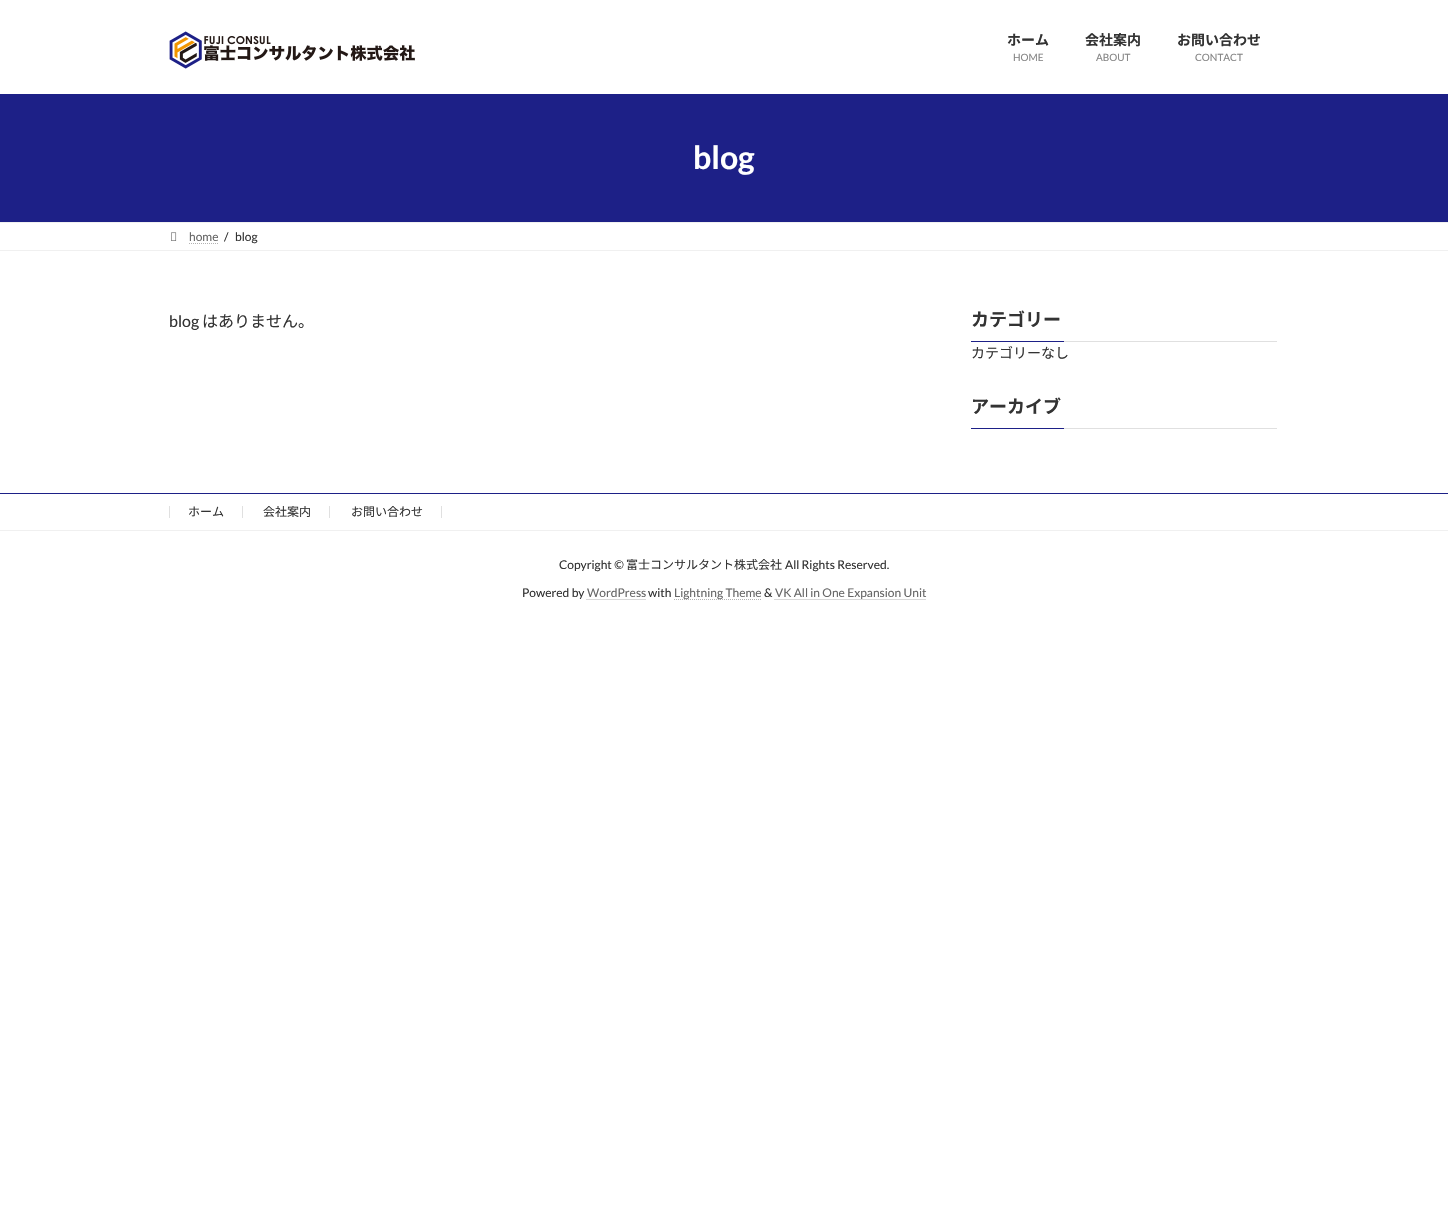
#include "include/core/SkBlurTypes.h"
#include "include/core/SkCanvas.h"
#include "include/core/SkData.h"
#include "include/core/SkFont.h"
#include "include/core/SkFontMgr.h"
#include "include/core/SkImage.h"
#include "include/core/SkMaskFilter.h"
#include "include/core/SkPaint.h"
#include "include/core/SkPathBuilder.h"
#include "include/core/SkTextBlob.h"
#include "include/effects/SkDashPathEffect.h"
#include "include/effects/SkGradientShader.h"
#include "include/utils/SkParsePath.h"

extern sk_sp<SkFontMgr> fontMgr;

void draw(SkCanvas* canvas) {
  SkPaint p;
  p.setAntiAlias(true);
  canvas->clear(SK_ColorWHITE);
  canvas->drawImageRect(SkImages::DeferredFromEncodedData(SkData::MakeFromFileName("images/1.png")), SkRect::MakeLTRB(169, 31, 415, 69), SkSamplingOptions());
  p.setColor(SkColorSetRGB(29, 32, 135));
  canvas->drawRect(SkRect::MakeLTRB(0, 94, 1448, 222), p);
  p.setColor(SkColorSetRGB(240, 240, 240));
  canvas->drawRect(SkRect::MakeLTRB(0, 222, 1448, 223), p);
  canvas->drawRect(SkRect::MakeLTRB(0, 250, 1448, 251), p);
  canvas->drawImageRect(SkImages::DeferredFromEncodedData(SkData::MakeFromFileName("images/2.png")), SkRect::MakeLTRB(171, 232, 177, 241), SkSamplingOptions());
  p.setStyle(SkPaint::kStroke_Style);
  p.setStrokeWidth(1);
  p.setColor(SkColorSetRGB(179, 179, 179));
  p.setPathEffect(SkDashPathEffect::Make({{1, 1}}, 0));
  canvas->drawPath(SkPathBuilder().moveTo(189, 243.5f).lineTo(218.5f, 243.5f).detach(), p);
  p.setPathEffect(nullptr);
  p.setStyle(SkPaint::kFill_Style);
  p.setColor(SkColorSetRGB(224, 224, 224));
  canvas->drawRect(SkRect::MakeLTRB(1064, 341, 1277, 342), p);
  p.setColor(SkColorSetRGB(29, 32, 135));
  canvas->drawRect(SkRect::MakeLTRB(971, 341, 1064, 342), p);
  p.setColor(SkColorSetRGB(224, 224, 224));
  canvas->drawRect(SkRect::MakeLTRB(1064, 428, 1277, 429), p);
  p.setColor(SkColorSetRGB(29, 32, 135));
  canvas->drawRect(SkRect::MakeLTRB(971, 428, 1064, 429), p);
  canvas->drawRect(SkRect::MakeLTRB(0, 493, 1448, 494), p);
  p.setColor(SkColorSetRGB(240, 240, 240));
  canvas->drawRect(SkRect::MakeLTRB(0, 530, 1448, 531), p);
  p.setColor(SkColorSetRGB(224, 224, 224));
  canvas->drawRect(SkRect::MakeLTRB(242, 506, 243, 518), p);
  canvas->drawRect(SkRect::MakeLTRB(169, 506, 170, 518), p);
  canvas->drawRect(SkRect::MakeLTRB(329, 506, 330, 518), p);
  canvas->drawRect(SkRect::MakeLTRB(441, 506, 442, 518), p);
  p.setStyle(SkPaint::kStroke_Style);
  p.setColor(SkColorSetRGB(179, 179, 179));
  p.setPathEffect(SkDashPathEffect::Make({{1, 1}}, 0));
  canvas->drawPath(SkPathBuilder().moveTo(586.5f, 599.5f).lineTo(646, 599.5f).detach(), p);
  p.setPathEffect(nullptr);
  p.setPathEffect(SkDashPathEffect::Make({{1, 1}}, 0));
  canvas->drawPath(SkPathBuilder().moveTo(674, 599.5f).lineTo(761.5f, 599.5f).detach(), p);
  p.setPathEffect(nullptr);
  p.setPathEffect(SkDashPathEffect::Make({{1, 1}}, 0));
  canvas->drawPath(SkPathBuilder().moveTo(774.5f, 599.5f).lineTo(926, 599.5f).detach(), p);
  p.setPathEffect(nullptr);
  SkFont font1(fontMgr->matchFamilyStyle("Noto Sans JP", SkFontStyle::Bold()), 14);
  font1.setSubpixel(true);
  p.setStyle(SkPaint::kFill_Style);
  p.setColor(SkColorSetRGB(51, 51, 51));
  canvas->drawString("ホーム", 1007, 45, font1, p);
  SkFont font2(fontMgr->matchFamilyStyle("Lato", SkFontStyle::Normal()), 10);
  font2.setSubpixel(true);
  p.setColor(SkColorSetRGB(133, 133, 133));
  canvas->drawString("HOME", 1013, 61, font2, p);
  p.setColor(SkColorSetRGB(51, 51, 51));
  canvas->drawString("会社案内", 1085, 45, font1, p);
  p.setColor(SkColorSetRGB(133, 133, 133));
  canvas->drawString("ABOUT", 1096, 61, font2, p);
  p.setColor(SkColorSetRGB(51, 51, 51));
  canvas->drawString("お問い合わせ", 1177, 45, font1, p);
  p.setColor(SkColorSetRGB(133, 133, 133));
  canvas->drawString("CONTACT", 1195, 61, font2, p);
  SkFont font3(fontMgr->matchFamilyStyle("Lato", SkFontStyle::Bold()), 32);
  font3.setSubpixel(true);
  p.setColor(SK_ColorWHITE);
  canvas->drawString("blog", 693, 169, font3, p);
  SkFont font4(fontMgr->matchFamilyStyle("Lato", SkFontStyle::Normal()), 12);
  font4.setSubpixel(true);
  p.setColor(SkColorSetRGB(102, 102, 102));
  canvas->drawString("home", 189, 241, font4, p);
  p.setColor(SkColorSetRGB(51, 51, 51));
  canvas->drawString("/", 224, 241, font4, p);
  canvas->drawString("blog", 235, 241, font4, p);
  SkFont font5(fontMgr->matchFamilyStyle("Lato", SkFontStyle::Normal()), 16);
  font5.setSubpixel(true);
  canvas->drawString("blog", 169, 327, font5, p);
  SkFont font6(fontMgr->matchFamilyStyle("Noto Sans JP", SkFontStyle::Normal()), 16);
  font6.setSubpixel(true);
  canvas->drawString("はありません。", 202, 327, font6, p);
  SkFont font7(fontMgr->matchFamilyStyle("Noto Sans JP", SkFontStyle::Bold()), 18);
  font7.setSubpixel(true);
  canvas->drawString("カテゴリー", 971, 326, font7, p);
  SkFont font8(fontMgr->matchFamilyStyle("Noto Sans JP", SkFontStyle::Normal()), 14);
  font8.setSubpixel(true);
  canvas->drawString("カテゴリーなし", 971, 358, font8, p);
  canvas->drawString("アーカイブ", 971, 413, font7, p);
  SkFont font9(fontMgr->matchFamilyStyle("Noto Sans JP", SkFontStyle::Normal()), 12);
  font9.setSubpixel(true);
  canvas->drawString("ホーム", 188, 516, font9, p);
  canvas->drawString("会社案内", 263, 516, font9, p);
  canvas->drawString("お問い合わせ", 351, 516, font9, p);
  canvas->drawString("Copyright ©", 559, 569, font4, p);
  canvas->drawString("富士コンサルタント株式会社", 626, 569, font9, p);
  canvas->drawString("All Rights Reserved.", 785, 569, font4, p);
  canvas->drawString("Powered by", 522, 597, font4, p);
  p.setColor(SkColorSetRGB(102, 102, 102));
  canvas->drawString("WordPress", 587, 597, font4, p);
  p.setColor(SkColorSetRGB(51, 51, 51));
  canvas->drawString("with", 648, 597, font4, p);
  p.setColor(SkColorSetRGB(102, 102, 102));
  canvas->drawString("Lightning Theme", 674, 597, font4, p);
  p.setColor(SkColorSetRGB(51, 51, 51));
  canvas->drawString("&", 764, 597, font4, p);
  p.setColor(SkColorSetRGB(102, 102, 102));
  canvas->drawString("VK All in One Expansion Unit", 775, 597, font4, p);
}
